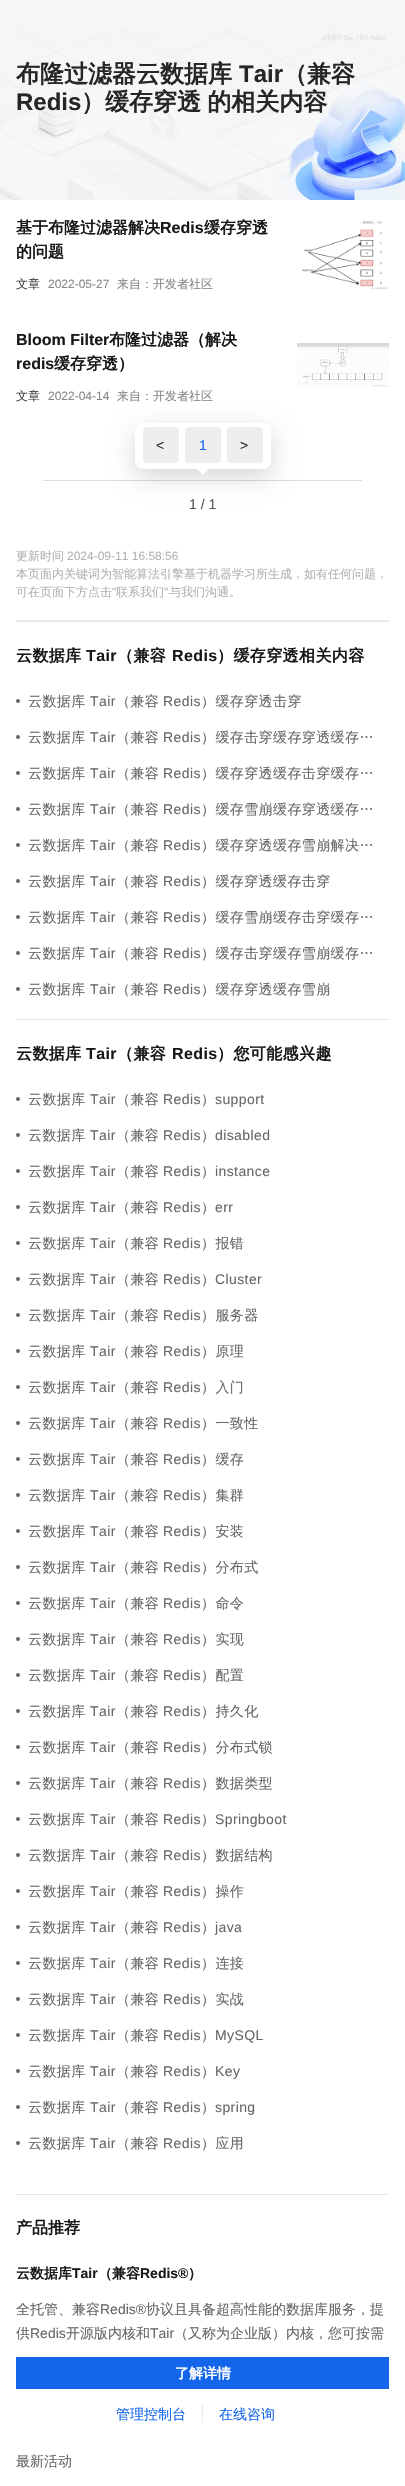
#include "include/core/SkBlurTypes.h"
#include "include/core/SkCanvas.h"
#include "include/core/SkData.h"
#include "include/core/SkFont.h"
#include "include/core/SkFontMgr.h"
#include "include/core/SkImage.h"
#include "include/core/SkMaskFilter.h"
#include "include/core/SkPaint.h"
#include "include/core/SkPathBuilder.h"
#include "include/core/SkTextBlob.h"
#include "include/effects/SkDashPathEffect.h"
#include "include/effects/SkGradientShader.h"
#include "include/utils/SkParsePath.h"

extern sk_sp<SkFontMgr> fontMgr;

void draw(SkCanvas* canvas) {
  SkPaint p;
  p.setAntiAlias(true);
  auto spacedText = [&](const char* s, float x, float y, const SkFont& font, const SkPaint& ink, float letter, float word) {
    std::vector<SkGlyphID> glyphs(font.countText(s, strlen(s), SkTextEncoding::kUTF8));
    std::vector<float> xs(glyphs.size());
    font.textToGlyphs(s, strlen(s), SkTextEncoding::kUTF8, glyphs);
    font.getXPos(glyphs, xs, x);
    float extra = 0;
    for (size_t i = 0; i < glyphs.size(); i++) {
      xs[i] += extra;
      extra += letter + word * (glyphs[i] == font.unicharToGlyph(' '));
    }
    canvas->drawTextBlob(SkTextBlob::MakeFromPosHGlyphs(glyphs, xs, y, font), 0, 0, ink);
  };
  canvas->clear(SK_ColorWHITE);
  p.setColor(SkColorSetRGB(246, 246, 246));
  canvas->drawRect(SkRect::MakeLTRB(0, 0, 405, 29), p);
  canvas->drawImageRect(SkImages::DeferredFromEncodedData(SkData::MakeFromFileName("images/1.png")), SkRect::MakeLTRB(0, 29, 405, 200), SkSamplingOptions());
  canvas->drawImageRect(SkImages::DeferredFromEncodedData(SkData::MakeFromFileName("images/2.png")), SkRect::MakeLTRB(322, 34, 386, 40), SkSamplingOptions());
  canvas->drawImageRect(SkImages::DeferredFromEncodedData(SkData::MakeFromFileName("images/3.png")), SkRect::MakeLTRB(302, 220, 388, 290), SkSamplingOptions());
  canvas->drawImageRect(SkImages::DeferredFromEncodedData(SkData::MakeFromFileName("images/4.png")), SkRect::MakeLTRB(297, 343, 389, 387), SkSamplingOptions());
  p.setColor(SkColorSetRGB(223, 220, 220));
  canvas->drawRect(SkRect::MakeLTRB(43, 480, 362, 481), p);
  p.setColor(SkColorSetARGB(41, 0, 0, 0));
  p.setMaskFilter(SkMaskFilter::MakeBlur(kNormal_SkBlurStyle, 12));
  canvas->drawRoundRect(SkRect::MakeLTRB(135, 431, 271, 477), 8, 8, p);
  p.setMaskFilter(nullptr);
  p.setColor(SK_ColorWHITE);
  canvas->drawRoundRect(SkRect::MakeLTRB(135, 423, 271, 469), 8, 8, p);
  p.setColor(SkColorSetRGB(238, 238, 238));
  canvas->drawRoundRect(SkRect::MakeLTRB(143, 427, 179, 463), 4, 4, p);
  canvas->drawRoundRect(SkRect::MakeLTRB(185, 427, 221, 463), 4, 4, p);
  canvas->drawRoundRect(SkRect::MakeLTRB(227, 427, 263, 463), 4, 4, p);
  p.setColor(SK_ColorWHITE);
  canvas->drawPath(SkPathBuilder().moveTo(193, 465).lineTo(213, 465).lineTo(203, 475).close().detach(), p);
  p.setColor(SkColorSetRGB(233, 233, 233));
  canvas->drawRect(SkRect::MakeLTRB(16, 620, 389, 622), p);
  p.setColor(SkColorSetRGB(102, 102, 102));
  canvas->drawCircle(18, 701, 2, p);
  canvas->drawCircle(18, 737, 2, p);
  canvas->drawCircle(18, 773, 2, p);
  canvas->drawCircle(18, 809, 2, p);
  canvas->drawCircle(18, 845, 2, p);
  canvas->drawCircle(18, 881, 2, p);
  canvas->drawCircle(18, 917, 2, p);
  canvas->drawCircle(18, 953, 2, p);
  canvas->drawCircle(18, 989, 2, p);
  p.setColor(SkColorSetRGB(233, 233, 233));
  canvas->drawRect(SkRect::MakeLTRB(16, 1019, 389, 1020), p);
  p.setColor(SkColorSetRGB(102, 102, 102));
  canvas->drawCircle(18, 1099, 2, p);
  canvas->drawCircle(18, 1135, 2, p);
  canvas->drawCircle(18, 1171, 2, p);
  canvas->drawCircle(18, 1207, 2, p);
  canvas->drawCircle(18, 1243, 2, p);
  canvas->drawCircle(18, 1279, 2, p);
  canvas->drawCircle(18, 1315, 2, p);
  canvas->drawCircle(18, 1351, 2, p);
  canvas->drawCircle(18, 1387, 2, p);
  canvas->drawCircle(18, 1423, 2, p);
  canvas->drawCircle(18, 1459, 2, p);
  canvas->drawCircle(18, 1495, 2, p);
  canvas->drawCircle(18, 1531, 2, p);
  canvas->drawCircle(18, 1567, 2, p);
  canvas->drawCircle(18, 1603, 2, p);
  canvas->drawCircle(18, 1639, 2, p);
  canvas->drawCircle(18, 1675, 2, p);
  canvas->drawCircle(18, 1711, 2, p);
  canvas->drawCircle(18, 1747, 2, p);
  canvas->drawCircle(18, 1783, 2, p);
  canvas->drawCircle(18, 1819, 2, p);
  canvas->drawCircle(18, 1855, 2, p);
  canvas->drawCircle(18, 1891, 2, p);
  canvas->drawCircle(18, 1927, 2, p);
  canvas->drawCircle(18, 1963, 2, p);
  canvas->drawCircle(18, 1999, 2, p);
  canvas->drawCircle(18, 2035, 2, p);
  canvas->drawCircle(18, 2071, 2, p);
  canvas->drawCircle(18, 2107, 2, p);
  canvas->drawCircle(18, 2143, 2, p);
  p.setColor(SkColorSetRGB(233, 233, 233));
  canvas->drawRect(SkRect::MakeLTRB(16, 2194, 389, 2195), p);
  p.setColor(SkColorSetRGB(19, 102, 236));
  canvas->drawRect(SkRect::MakeLTRB(16, 2357, 389, 2389), p);
  p.setColor(SkColorSetRGB(233, 233, 233));
  canvas->drawRect(SkRect::MakeLTRB(202, 2405, 203, 2423), p);
  SkFont font1(fontMgr->matchFamilyStyle("WenQuanYi Zen Hei", SkFontStyle::Bold()), 24);
  font1.setSubpixel(true);
  p.setColor(SkColorSetRGB(38, 38, 38));
  canvas->drawString("布隆过滤器云数据库", 16, 82, font1, p);
  SkFont font2(fontMgr->matchFamilyStyle("Liberation Sans", SkFontStyle::Bold()), 24);
  font2.setSubpixel(true);
  canvas->drawString("Tair", 239, 82, font2, p);
  canvas->drawString("（兼容", 283, 82, font1, p);
  canvas->drawString("Redis", 16, 110, font2, p);
  spacedText("）缓存穿透 的相关内容", 81, 110, font1, p, 0, -1);
  SkFont font3(fontMgr->matchFamilyStyle("WenQuanYi Zen Hei", SkFontStyle::Bold()), 16);
  font3.setSubpixel(true);
  p.setColor(SkColorSetRGB(24, 24, 24));
  canvas->drawString("基于布隆过滤器解决", 16, 233, font3, p);
  SkFont font4(fontMgr->matchFamilyStyle("Liberation Sans", SkFontStyle::Bold()), 16);
  font4.setSubpixel(true);
  canvas->drawString("Redis", 160, 233, font4, p);
  canvas->drawString("缓存穿透", 204, 233, font3, p);
  canvas->drawString("的问题", 16, 257, font3, p);
  SkFont font5(fontMgr->matchFamilyStyle("WenQuanYi Zen Hei", SkFontStyle(500, SkFontStyle::kNormal_Width, SkFontStyle::kUpright_Slant)), 12);
  font5.setSubpixel(true);
  p.setColor(SkColorSetRGB(61, 61, 61));
  canvas->drawString("文章", 16, 288, font5, p);
  SkFont font6(fontMgr->matchFamilyStyle("Liberation Sans", SkFontStyle::Normal()), 12);
  font6.setSubpixel(true);
  p.setColor(SkColorSetRGB(134, 134, 134));
  canvas->drawString("2022-05-27", 48, 288, font6, p);
  canvas->drawString("来自：开发者社区", 117, 288, font5, p);
  p.setColor(SkColorSetRGB(24, 24, 24));
  canvas->drawString("Bloom Filter", 16, 345, font4, p);
  canvas->drawString("布隆过滤器（解决", 109, 345, font3, p);
  canvas->drawString("redis", 16, 369, font4, p);
  canvas->drawString("缓存穿透）", 54, 369, font3, p);
  p.setColor(SkColorSetRGB(61, 61, 61));
  canvas->drawString("文章", 16, 400, font5, p);
  p.setColor(SkColorSetRGB(134, 134, 134));
  canvas->drawString("2022-04-14", 48, 400, font6, p);
  canvas->drawString("来自：开发者社区", 117, 400, font5, p);
  SkFont font7(fontMgr->matchFamilyStyle("Liberation Sans", SkFontStyle::Normal()), 14);
  font7.setSubpixel(true);
  p.setColor(SkColorSetRGB(38, 38, 38));
  canvas->drawString("<", 156, 450, font7, p);
  p.setColor(SkColorSetRGB(19, 102, 236));
  canvas->drawString("1", 199, 450, font7, p);
  p.setColor(SkColorSetRGB(38, 38, 38));
  canvas->drawString(">", 240, 450, font7, p);
  p.setColor(SkColorSetRGB(85, 85, 85));
  canvas->drawString("1 / 1", 189, 509, font7, p);
  p.setColor(SkColorSetRGB(178, 178, 178));
  canvas->drawString("更新时间", 16, 560, font5, p);
  canvas->drawString("2024-09-11 16:58:56", 67, 560, font6, p);
  canvas->drawString("本页面内关键词为智能算法引擎基于机器学习所生成，如有任何问题，", 16, 578, font5, p);
  canvas->drawString("可在页面下方点击", 16, 596, font5, p);
  canvas->drawString("\"", 112, 596, font6, p);
  canvas->drawString("联系我们", 116, 596, font5, p);
  canvas->drawString("\"", 164, 596, font6, p);
  canvas->drawString("与我们沟通。", 169, 596, font5, p);
  p.setColor(SkColorSetRGB(24, 24, 24));
  spacedText("云数据库", 16, 661, font3, p, 0.4f, 0);
  spacedText("Tair", 86, 661, font4, p, 0.4f, 0);
  spacedText("（兼容", 117, 661, font3, p, 0.4f, 0);
  spacedText("Redis", 172, 661, font4, p, 0.4f, 0);
  spacedText("）缓存穿透相关内容", 217, 661, font3, p, 0.4f, 0);
  SkFont font8(fontMgr->matchFamilyStyle("WenQuanYi Zen Hei", SkFontStyle(500, SkFontStyle::kNormal_Width, SkFontStyle::kUpright_Slant)), 14);
  font8.setSubpixel(true);
  p.setColor(SkColorSetRGB(102, 102, 102));
  spacedText("云数据库", 28, 706, font8, p, 0.4f, 0);
  spacedText("Tair", 90, 706, font7, p, 0.4f, 0);
  spacedText("（兼容", 116, 706, font8, p, 0.4f, 0);
  spacedText("Redis", 163, 706, font7, p, 0.4f, 0);
  spacedText("）缓存穿透击穿", 201, 706, font8, p, 0.4f, 0);
  spacedText("云数据库", 28, 742, font8, p, 0.4f, 0);
  spacedText("Tair", 90, 742, font7, p, 0.4f, 0);
  spacedText("（兼容", 116, 742, font8, p, 0.4f, 0);
  spacedText("Redis", 163, 742, font7, p, 0.4f, 0);
  spacedText("）缓存击穿缓存穿透缓存…", 201, 742, font8, p, 0.4f, 0);
  spacedText("云数据库", 28, 778, font8, p, 0.4f, 0);
  spacedText("Tair", 90, 778, font7, p, 0.4f, 0);
  spacedText("（兼容", 116, 778, font8, p, 0.4f, 0);
  spacedText("Redis", 163, 778, font7, p, 0.4f, 0);
  spacedText("）缓存穿透缓存击穿缓存…", 201, 778, font8, p, 0.4f, 0);
  spacedText("云数据库", 28, 814, font8, p, 0.4f, 0);
  spacedText("Tair", 90, 814, font7, p, 0.4f, 0);
  spacedText("（兼容", 116, 814, font8, p, 0.4f, 0);
  spacedText("Redis", 163, 814, font7, p, 0.4f, 0);
  spacedText("）缓存雪崩缓存穿透缓存…", 201, 814, font8, p, 0.4f, 0);
  spacedText("云数据库", 28, 850, font8, p, 0.4f, 0);
  spacedText("Tair", 90, 850, font7, p, 0.4f, 0);
  spacedText("（兼容", 116, 850, font8, p, 0.4f, 0);
  spacedText("Redis", 163, 850, font7, p, 0.4f, 0);
  spacedText("）缓存穿透缓存雪崩解决…", 201, 850, font8, p, 0.4f, 0);
  spacedText("云数据库", 28, 886, font8, p, 0.4f, 0);
  spacedText("Tair", 90, 886, font7, p, 0.4f, 0);
  spacedText("（兼容", 116, 886, font8, p, 0.4f, 0);
  spacedText("Redis", 163, 886, font7, p, 0.4f, 0);
  spacedText("）缓存穿透缓存击穿", 201, 886, font8, p, 0.4f, 0);
  spacedText("云数据库", 28, 922, font8, p, 0.4f, 0);
  spacedText("Tair", 90, 922, font7, p, 0.4f, 0);
  spacedText("（兼容", 116, 922, font8, p, 0.4f, 0);
  spacedText("Redis", 163, 922, font7, p, 0.4f, 0);
  spacedText("）缓存雪崩缓存击穿缓存…", 201, 922, font8, p, 0.4f, 0);
  spacedText("云数据库", 28, 958, font8, p, 0.4f, 0);
  spacedText("Tair", 90, 958, font7, p, 0.4f, 0);
  spacedText("（兼容", 116, 958, font8, p, 0.4f, 0);
  spacedText("Redis", 163, 958, font7, p, 0.4f, 0);
  spacedText("）缓存击穿缓存雪崩缓存…", 201, 958, font8, p, 0.4f, 0);
  spacedText("云数据库", 28, 994, font8, p, 0.4f, 0);
  spacedText("Tair", 90, 994, font7, p, 0.4f, 0);
  spacedText("（兼容", 116, 994, font8, p, 0.4f, 0);
  spacedText("Redis", 163, 994, font7, p, 0.4f, 0);
  spacedText("）缓存穿透缓存雪崩", 201, 994, font8, p, 0.4f, 0);
  p.setColor(SkColorSetRGB(24, 24, 24));
  spacedText("云数据库", 16, 1059, font3, p, 0.4f, 0);
  spacedText("Tair", 86, 1059, font4, p, 0.4f, 0);
  spacedText("（兼容", 117, 1059, font3, p, 0.4f, 0);
  spacedText("Redis", 172, 1059, font4, p, 0.4f, 0);
  spacedText("）您可能感兴趣", 217, 1059, font3, p, 0.4f, 0);
  p.setColor(SkColorSetRGB(102, 102, 102));
  spacedText("云数据库", 28, 1104, font8, p, 0.4f, 0);
  spacedText("Tair", 90, 1104, font7, p, 0.4f, 0);
  spacedText("（兼容", 116, 1104, font8, p, 0.4f, 0);
  spacedText("Redis", 163, 1104, font7, p, 0.4f, 0);
  spacedText("）", 201, 1104, font8, p, 0.4f, 0);
  spacedText("support", 215, 1104, font7, p, 0.4f, 0);
  spacedText("云数据库", 28, 1140, font8, p, 0.4f, 0);
  spacedText("Tair", 90, 1140, font7, p, 0.4f, 0);
  spacedText("（兼容", 116, 1140, font8, p, 0.4f, 0);
  spacedText("Redis", 163, 1140, font7, p, 0.4f, 0);
  spacedText("）", 201, 1140, font8, p, 0.4f, 0);
  spacedText("disabled", 215, 1140, font7, p, 0.4f, 0);
  spacedText("云数据库", 28, 1176, font8, p, 0.4f, 0);
  spacedText("Tair", 90, 1176, font7, p, 0.4f, 0);
  spacedText("（兼容", 116, 1176, font8, p, 0.4f, 0);
  spacedText("Redis", 163, 1176, font7, p, 0.4f, 0);
  spacedText("）", 201, 1176, font8, p, 0.4f, 0);
  spacedText("instance", 215, 1176, font7, p, 0.4f, 0);
  spacedText("云数据库", 28, 1212, font8, p, 0.4f, 0);
  spacedText("Tair", 90, 1212, font7, p, 0.4f, 0);
  spacedText("（兼容", 116, 1212, font8, p, 0.4f, 0);
  spacedText("Redis", 163, 1212, font7, p, 0.4f, 0);
  spacedText("）", 201, 1212, font8, p, 0.4f, 0);
  spacedText("err", 215, 1212, font7, p, 0.4f, 0);
  spacedText("云数据库", 28, 1248, font8, p, 0.4f, 0);
  spacedText("Tair", 90, 1248, font7, p, 0.4f, 0);
  spacedText("（兼容", 116, 1248, font8, p, 0.4f, 0);
  spacedText("Redis", 163, 1248, font7, p, 0.4f, 0);
  spacedText("）报错", 201, 1248, font8, p, 0.4f, 0);
  spacedText("云数据库", 28, 1284, font8, p, 0.4f, 0);
  spacedText("Tair", 90, 1284, font7, p, 0.4f, 0);
  spacedText("（兼容", 116, 1284, font8, p, 0.4f, 0);
  spacedText("Redis", 163, 1284, font7, p, 0.4f, 0);
  spacedText("）", 201, 1284, font8, p, 0.4f, 0);
  spacedText("Cluster", 215, 1284, font7, p, 0.4f, 0);
  spacedText("云数据库", 28, 1320, font8, p, 0.4f, 0);
  spacedText("Tair", 90, 1320, font7, p, 0.4f, 0);
  spacedText("（兼容", 116, 1320, font8, p, 0.4f, 0);
  spacedText("Redis", 163, 1320, font7, p, 0.4f, 0);
  spacedText("）服务器", 201, 1320, font8, p, 0.4f, 0);
  spacedText("云数据库", 28, 1356, font8, p, 0.4f, 0);
  spacedText("Tair", 90, 1356, font7, p, 0.4f, 0);
  spacedText("（兼容", 116, 1356, font8, p, 0.4f, 0);
  spacedText("Redis", 163, 1356, font7, p, 0.4f, 0);
  spacedText("）原理", 201, 1356, font8, p, 0.4f, 0);
  spacedText("云数据库", 28, 1392, font8, p, 0.4f, 0);
  spacedText("Tair", 90, 1392, font7, p, 0.4f, 0);
  spacedText("（兼容", 116, 1392, font8, p, 0.4f, 0);
  spacedText("Redis", 163, 1392, font7, p, 0.4f, 0);
  spacedText("）入门", 201, 1392, font8, p, 0.4f, 0);
  spacedText("云数据库", 28, 1428, font8, p, 0.4f, 0);
  spacedText("Tair", 90, 1428, font7, p, 0.4f, 0);
  spacedText("（兼容", 116, 1428, font8, p, 0.4f, 0);
  spacedText("Redis", 163, 1428, font7, p, 0.4f, 0);
  spacedText("）一致性", 201, 1428, font8, p, 0.4f, 0);
  spacedText("云数据库", 28, 1464, font8, p, 0.4f, 0);
  spacedText("Tair", 90, 1464, font7, p, 0.4f, 0);
  spacedText("（兼容", 116, 1464, font8, p, 0.4f, 0);
  spacedText("Redis", 163, 1464, font7, p, 0.4f, 0);
  spacedText("）缓存", 201, 1464, font8, p, 0.4f, 0);
  spacedText("云数据库", 28, 1500, font8, p, 0.4f, 0);
  spacedText("Tair", 90, 1500, font7, p, 0.4f, 0);
  spacedText("（兼容", 116, 1500, font8, p, 0.4f, 0);
  spacedText("Redis", 163, 1500, font7, p, 0.4f, 0);
  spacedText("）集群", 201, 1500, font8, p, 0.4f, 0);
  spacedText("云数据库", 28, 1536, font8, p, 0.4f, 0);
  spacedText("Tair", 90, 1536, font7, p, 0.4f, 0);
  spacedText("（兼容", 116, 1536, font8, p, 0.4f, 0);
  spacedText("Redis", 163, 1536, font7, p, 0.4f, 0);
  spacedText("）安装", 201, 1536, font8, p, 0.4f, 0);
  spacedText("云数据库", 28, 1572, font8, p, 0.4f, 0);
  spacedText("Tair", 90, 1572, font7, p, 0.4f, 0);
  spacedText("（兼容", 116, 1572, font8, p, 0.4f, 0);
  spacedText("Redis", 163, 1572, font7, p, 0.4f, 0);
  spacedText("）分布式", 201, 1572, font8, p, 0.4f, 0);
  spacedText("云数据库", 28, 1608, font8, p, 0.4f, 0);
  spacedText("Tair", 90, 1608, font7, p, 0.4f, 0);
  spacedText("（兼容", 116, 1608, font8, p, 0.4f, 0);
  spacedText("Redis", 163, 1608, font7, p, 0.4f, 0);
  spacedText("）命令", 201, 1608, font8, p, 0.4f, 0);
  spacedText("云数据库", 28, 1644, font8, p, 0.4f, 0);
  spacedText("Tair", 90, 1644, font7, p, 0.4f, 0);
  spacedText("（兼容", 116, 1644, font8, p, 0.4f, 0);
  spacedText("Redis", 163, 1644, font7, p, 0.4f, 0);
  spacedText("）实现", 201, 1644, font8, p, 0.4f, 0);
  spacedText("云数据库", 28, 1680, font8, p, 0.4f, 0);
  spacedText("Tair", 90, 1680, font7, p, 0.4f, 0);
  spacedText("（兼容", 116, 1680, font8, p, 0.4f, 0);
  spacedText("Redis", 163, 1680, font7, p, 0.4f, 0);
  spacedText("）配置", 201, 1680, font8, p, 0.4f, 0);
  spacedText("云数据库", 28, 1716, font8, p, 0.4f, 0);
  spacedText("Tair", 90, 1716, font7, p, 0.4f, 0);
  spacedText("（兼容", 116, 1716, font8, p, 0.4f, 0);
  spacedText("Redis", 163, 1716, font7, p, 0.4f, 0);
  spacedText("）持久化", 201, 1716, font8, p, 0.4f, 0);
  spacedText("云数据库", 28, 1752, font8, p, 0.4f, 0);
  spacedText("Tair", 90, 1752, font7, p, 0.4f, 0);
  spacedText("（兼容", 116, 1752, font8, p, 0.4f, 0);
  spacedText("Redis", 163, 1752, font7, p, 0.4f, 0);
  spacedText("）分布式锁", 201, 1752, font8, p, 0.4f, 0);
  spacedText("云数据库", 28, 1788, font8, p, 0.4f, 0);
  spacedText("Tair", 90, 1788, font7, p, 0.4f, 0);
  spacedText("（兼容", 116, 1788, font8, p, 0.4f, 0);
  spacedText("Redis", 163, 1788, font7, p, 0.4f, 0);
  spacedText("）数据类型", 201, 1788, font8, p, 0.4f, 0);
  spacedText("云数据库", 28, 1824, font8, p, 0.4f, 0);
  spacedText("Tair", 90, 1824, font7, p, 0.4f, 0);
  spacedText("（兼容", 116, 1824, font8, p, 0.4f, 0);
  spacedText("Redis", 163, 1824, font7, p, 0.4f, 0);
  spacedText("）", 201, 1824, font8, p, 0.4f, 0);
  spacedText("Springboot", 215, 1824, font7, p, 0.4f, 0);
  spacedText("云数据库", 28, 1860, font8, p, 0.4f, 0);
  spacedText("Tair", 90, 1860, font7, p, 0.4f, 0);
  spacedText("（兼容", 116, 1860, font8, p, 0.4f, 0);
  spacedText("Redis", 163, 1860, font7, p, 0.4f, 0);
  spacedText("）数据结构", 201, 1860, font8, p, 0.4f, 0);
  spacedText("云数据库", 28, 1896, font8, p, 0.4f, 0);
  spacedText("Tair", 90, 1896, font7, p, 0.4f, 0);
  spacedText("（兼容", 116, 1896, font8, p, 0.4f, 0);
  spacedText("Redis", 163, 1896, font7, p, 0.4f, 0);
  spacedText("）操作", 201, 1896, font8, p, 0.4f, 0);
  spacedText("云数据库", 28, 1932, font8, p, 0.4f, 0);
  spacedText("Tair", 90, 1932, font7, p, 0.4f, 0);
  spacedText("（兼容", 116, 1932, font8, p, 0.4f, 0);
  spacedText("Redis", 163, 1932, font7, p, 0.4f, 0);
  spacedText("）", 201, 1932, font8, p, 0.4f, 0);
  spacedText("java", 215, 1932, font7, p, 0.4f, 0);
  spacedText("云数据库", 28, 1968, font8, p, 0.4f, 0);
  spacedText("Tair", 90, 1968, font7, p, 0.4f, 0);
  spacedText("（兼容", 116, 1968, font8, p, 0.4f, 0);
  spacedText("Redis", 163, 1968, font7, p, 0.4f, 0);
  spacedText("）连接", 201, 1968, font8, p, 0.4f, 0);
  spacedText("云数据库", 28, 2004, font8, p, 0.4f, 0);
  spacedText("Tair", 90, 2004, font7, p, 0.4f, 0);
  spacedText("（兼容", 116, 2004, font8, p, 0.4f, 0);
  spacedText("Redis", 163, 2004, font7, p, 0.4f, 0);
  spacedText("）实战", 201, 2004, font8, p, 0.4f, 0);
  spacedText("云数据库", 28, 2040, font8, p, 0.4f, 0);
  spacedText("Tair", 90, 2040, font7, p, 0.4f, 0);
  spacedText("（兼容", 116, 2040, font8, p, 0.4f, 0);
  spacedText("Redis", 163, 2040, font7, p, 0.4f, 0);
  spacedText("）", 201, 2040, font8, p, 0.4f, 0);
  spacedText("MySQL", 215, 2040, font7, p, 0.4f, 0);
  spacedText("云数据库", 28, 2076, font8, p, 0.4f, 0);
  spacedText("Tair", 90, 2076, font7, p, 0.4f, 0);
  spacedText("（兼容", 116, 2076, font8, p, 0.4f, 0);
  spacedText("Redis", 163, 2076, font7, p, 0.4f, 0);
  spacedText("）", 201, 2076, font8, p, 0.4f, 0);
  spacedText("Key", 215, 2076, font7, p, 0.4f, 0);
  spacedText("云数据库", 28, 2112, font8, p, 0.4f, 0);
  spacedText("Tair", 90, 2112, font7, p, 0.4f, 0);
  spacedText("（兼容", 116, 2112, font8, p, 0.4f, 0);
  spacedText("Redis", 163, 2112, font7, p, 0.4f, 0);
  spacedText("）", 201, 2112, font8, p, 0.4f, 0);
  spacedText("spring", 215, 2112, font7, p, 0.4f, 0);
  spacedText("云数据库", 28, 2148, font8, p, 0.4f, 0);
  spacedText("Tair", 90, 2148, font7, p, 0.4f, 0);
  spacedText("（兼容", 116, 2148, font8, p, 0.4f, 0);
  spacedText("Redis", 163, 2148, font7, p, 0.4f, 0);
  spacedText("）应用", 201, 2148, font8, p, 0.4f, 0);
  p.setColor(SkColorSetRGB(24, 24, 24));
  canvas->drawString("产品推荐", 16, 2233, font3, p);
  SkFont font9(fontMgr->matchFamilyStyle("WenQuanYi Zen Hei", SkFontStyle::Bold()), 14);
  font9.setSubpixel(true);
  canvas->drawString("云数据库", 16, 2278, font9, p);
  SkFont font10(fontMgr->matchFamilyStyle("Liberation Sans", SkFontStyle::Bold()), 14);
  font10.setSubpixel(true);
  canvas->drawString("Tair", 72, 2278, font10, p);
  canvas->drawString("（兼容", 98, 2278, font9, p);
  canvas->drawString("Redis®", 140, 2278, font10, p);
  canvas->drawString("）", 188, 2278, font9, p);
  p.setColor(SkColorSetRGB(102, 102, 102));
  canvas->drawString("全托管、兼容", 16, 2314, font8, p);
  canvas->drawString("Redis®", 100, 2314, font7, p);
  canvas->drawString("协议且具备超高性能的数据库服务，提", 146, 2314, font8, p);
  canvas->drawString("供", 16, 2338, font8, p);
  canvas->drawString("Redis", 30, 2338, font7, p);
  canvas->drawString("开源版内核和", 66, 2338, font8, p);
  canvas->drawString("Tair", 150, 2338, font7, p);
  canvas->drawString("（又称为企业版）内核，您可按需", 174, 2338, font8, p);
  p.setColor(SK_ColorWHITE);
  canvas->drawString("了解详情", 175, 2378, font9, p);
  p.setColor(SkColorSetRGB(19, 102, 236));
  canvas->drawString("管理控制台", 116, 2419, font8, p);
  canvas->drawString("在线咨询", 219, 2419, font8, p);
  p.setColor(SkColorSetRGB(102, 102, 102));
  canvas->drawString("最新活动", 16, 2466, font8, p);
}
